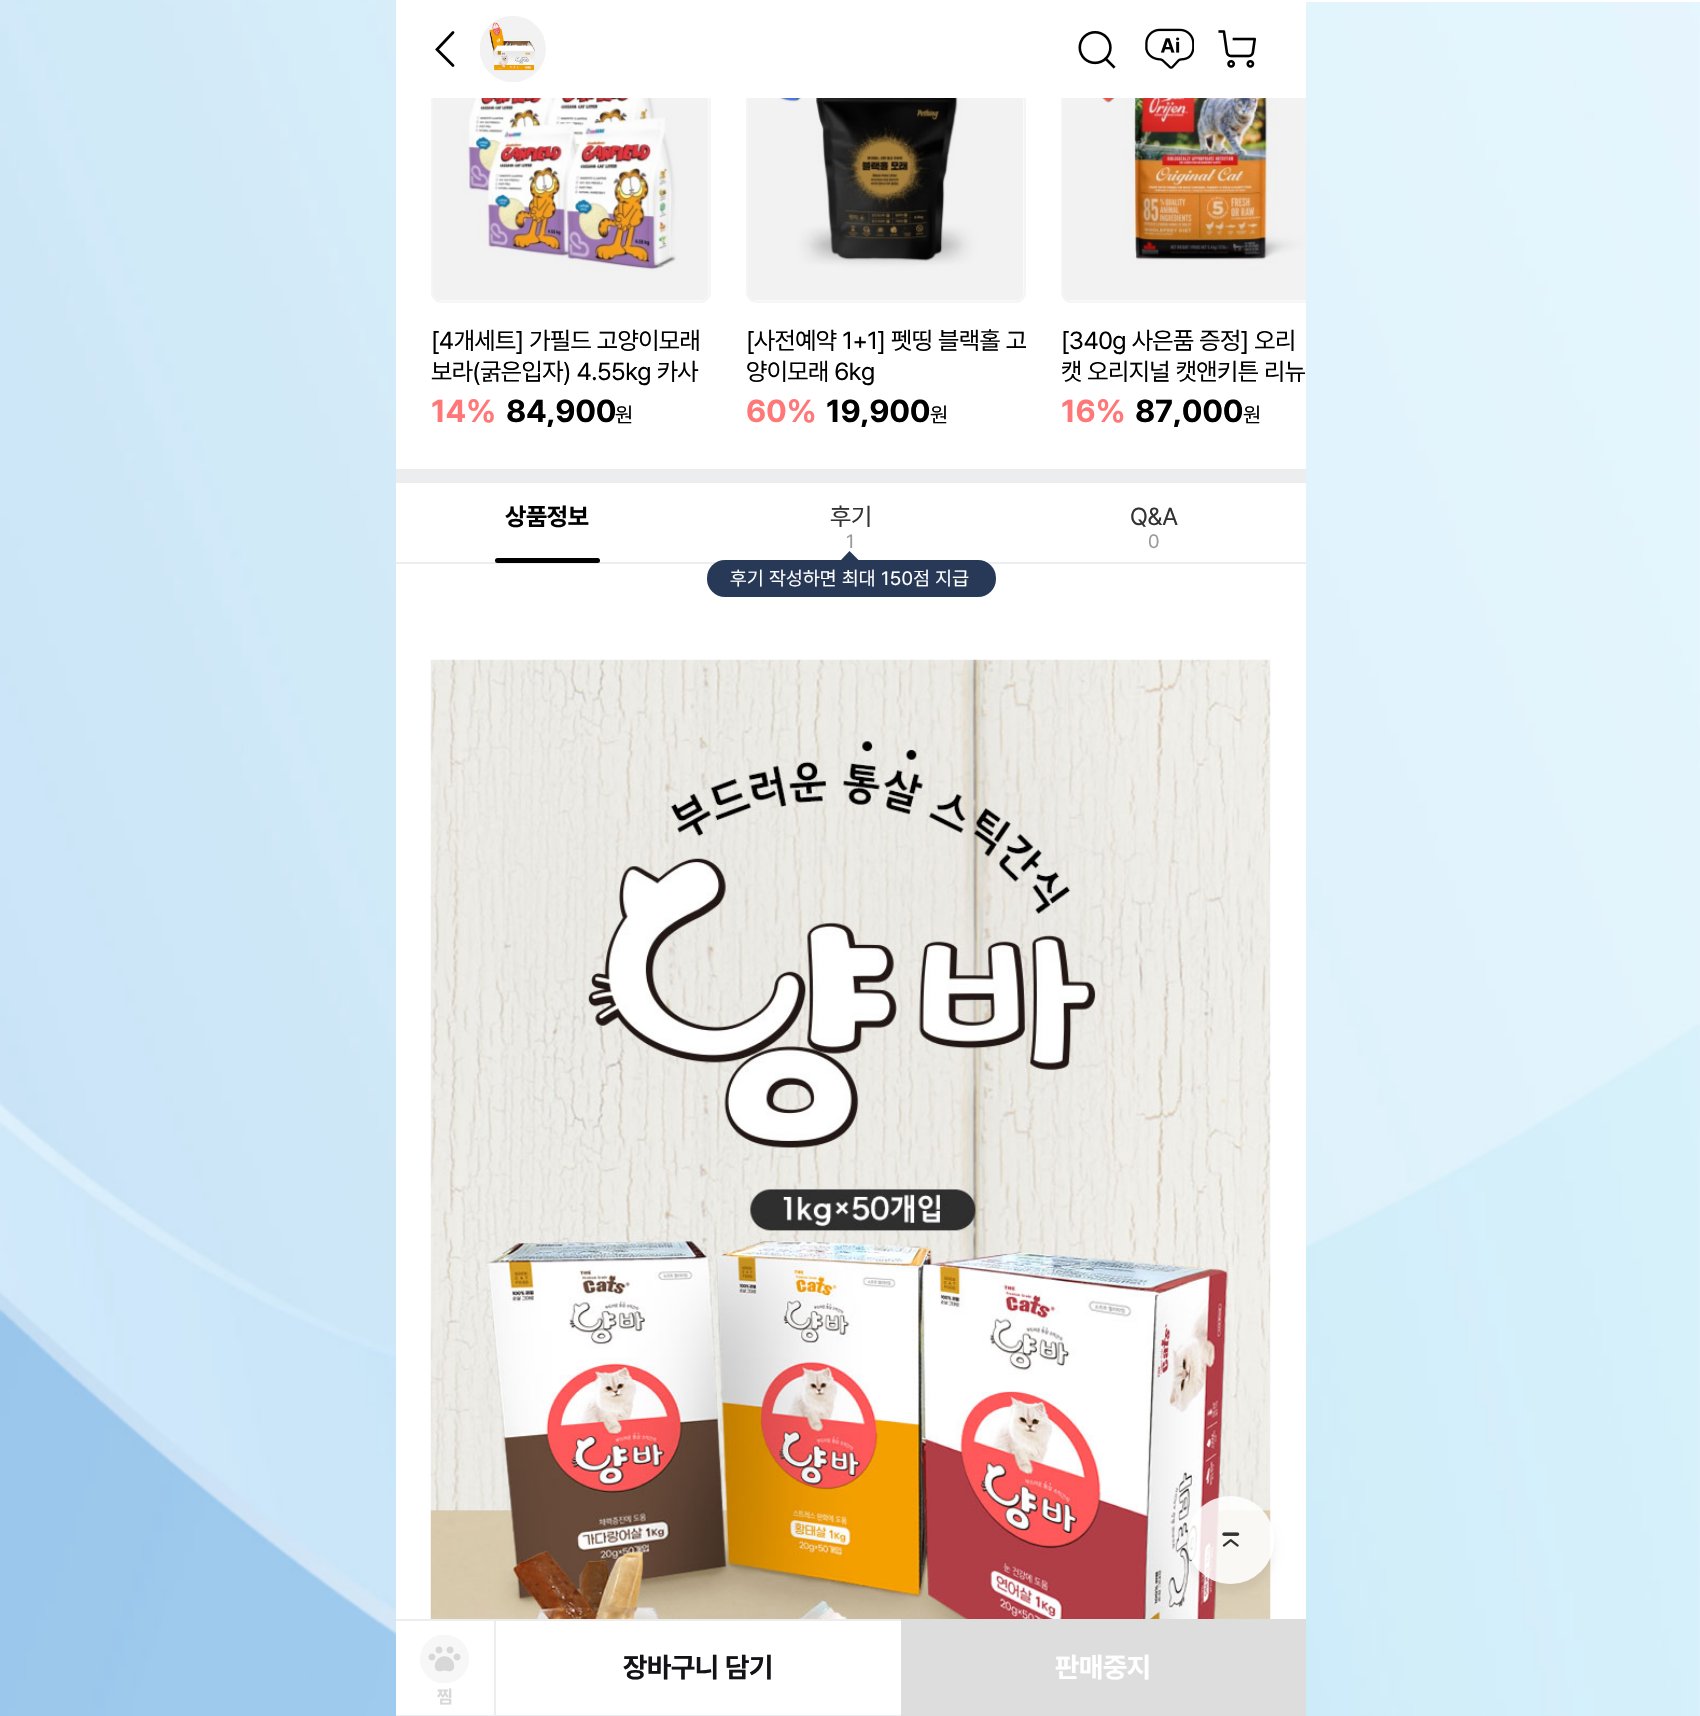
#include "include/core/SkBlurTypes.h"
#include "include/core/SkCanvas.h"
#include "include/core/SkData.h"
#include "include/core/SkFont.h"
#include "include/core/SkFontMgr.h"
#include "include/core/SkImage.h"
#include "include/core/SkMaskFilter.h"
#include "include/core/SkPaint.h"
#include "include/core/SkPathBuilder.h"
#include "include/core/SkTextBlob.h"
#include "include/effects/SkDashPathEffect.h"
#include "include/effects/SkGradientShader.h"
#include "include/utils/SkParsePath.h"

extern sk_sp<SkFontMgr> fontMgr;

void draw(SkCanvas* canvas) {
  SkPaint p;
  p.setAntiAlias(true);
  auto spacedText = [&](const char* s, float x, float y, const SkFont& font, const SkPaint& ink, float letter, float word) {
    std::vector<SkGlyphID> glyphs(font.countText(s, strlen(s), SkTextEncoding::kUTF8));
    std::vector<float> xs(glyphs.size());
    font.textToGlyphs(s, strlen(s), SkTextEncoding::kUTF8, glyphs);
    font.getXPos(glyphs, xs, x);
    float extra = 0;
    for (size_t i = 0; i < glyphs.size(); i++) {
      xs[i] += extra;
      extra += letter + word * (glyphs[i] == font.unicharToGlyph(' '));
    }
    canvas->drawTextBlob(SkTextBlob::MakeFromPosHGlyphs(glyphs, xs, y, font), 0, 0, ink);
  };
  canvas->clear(SK_ColorWHITE);
  canvas->drawImageRect(SkImages::DeferredFromEncodedData(SkData::MakeFromFileName("images/1.png")), SkRect::MakeLTRB(0, 0, 1700, 1716), SkSamplingOptions());
  p.setColor(SK_ColorWHITE);
  canvas->drawRect(SkRect::MakeLTRB(396, 98, 1306, 1619), p);
  p.setStyle(SkPaint::kStroke_Style);
  p.setStrokeWidth(2);
  p.setColor(SkColorSetRGB(245, 245, 245));
  canvas->drawRoundRect(SkRect::MakeLTRB(432, 24, 710, 302), 10, 10, p);
  canvas->drawRoundRect(SkRect::MakeLTRB(747, 24, 1025, 302), 10, 10, p);
  canvas->save();
  canvas->clipRect(SkRect::MakeLTRB(396, 23, 1306, 427));
  canvas->drawRoundRect(SkRect::MakeLTRB(1062, 24, 1340, 302), 10, 10, p);
  canvas->restore();
  p.setStyle(SkPaint::kFill_Style);
  p.setColor(SK_ColorWHITE);
  canvas->drawRect(SkRect::MakeLTRB(396, 2, 1306, 98), p);
  canvas->drawRect(SkRect::MakeLTRB(396, 0, 1700, 2), p);
  p.setStyle(SkPaint::kStroke_Style);
  p.setStrokeWidth(2.8f);
  p.setStrokeCap(SkPaint::kRound_Cap);
  p.setColor(SK_ColorBLACK);
  canvas->drawPath(SkPathBuilder().moveTo(453, 32.5f).lineTo(437, 49.5f).lineTo(453, 65.5f).detach(), p);
  canvas->drawImageRect(SkImages::DeferredFromEncodedData(SkData::MakeFromFileName("images/2.png")), SkRect::MakeLTRB(480, 16, 546, 82), SkSamplingOptions());
  canvas->drawImageRect(SkImages::DeferredFromEncodedData(SkData::MakeFromFileName("images/3.png")), SkRect::MakeLTRB(1078, 31, 1116, 69), SkSamplingOptions());
  canvas->drawImageRect(SkImages::DeferredFromEncodedData(SkData::MakeFromFileName("images/4.png")), SkRect::MakeLTRB(1145, 28, 1194, 69), SkSamplingOptions());
  canvas->drawImageRect(SkImages::DeferredFromEncodedData(SkData::MakeFromFileName("images/5.png")), SkRect::MakeLTRB(1218, 30, 1256, 68), SkSamplingOptions());
  canvas->drawImageRect(SkImages::DeferredFromEncodedData(SkData::MakeFromFileName("images/6.png")), SkRect::MakeLTRB(433, 98, 709, 301), SkSamplingOptions());
  canvas->drawImageRect(SkImages::DeferredFromEncodedData(SkData::MakeFromFileName("images/7.png")), SkRect::MakeLTRB(748, 98, 1024, 301), SkSamplingOptions());
  canvas->drawImageRect(SkImages::DeferredFromEncodedData(SkData::MakeFromFileName("images/8.png")), SkRect::MakeLTRB(779, 98, 801, 102), SkSamplingOptions());
  canvas->drawImageRect(SkImages::DeferredFromEncodedData(SkData::MakeFromFileName("images/9.png")), SkRect::MakeLTRB(1063, 98, 1306, 301), SkSamplingOptions());
  canvas->drawImageRect(SkImages::DeferredFromEncodedData(SkData::MakeFromFileName("images/10.png")), SkRect::MakeLTRB(1102, 98, 1115, 103), SkSamplingOptions());
  p.setStyle(SkPaint::kFill_Style);
  p.setColor(SkColorSetRGB(236, 237, 239));
  canvas->drawRect(SkRect::MakeLTRB(396, 469, 1306, 483), p);
  canvas->drawRect(SkRect::MakeLTRB(396, 562, 1306, 564), p);
  p.setColor(SK_ColorBLACK);
  canvas->drawRoundRect(SkRect::MakeLTRB(495, 558, 600, 563), 2.5f, 2.5f, p);
  p.setColor(SkColorSetRGB(39, 57, 87));
  canvas->drawRoundRect(SkRect::MakeLTRB(707, 560, 996, 597), 18, 18, p);
  canvas->drawPath(SkPathBuilder().moveTo(858.5f, 560).lineTo(841, 560).lineTo(849.5f, 551).close().detach(), p);
  canvas->drawImageRect(SkImages::DeferredFromEncodedData(SkData::MakeFromFileName("images/11.png")), SkRect::MakeLTRB(430, 659, 1271, 1619), SkSamplingOptions());
  canvas->save();
  canvas->clipPath(SkPathBuilder(SkPathFillType::kEvenOdd).moveTo(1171, 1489).lineTo(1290, 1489).lineTo(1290, 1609).lineTo(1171, 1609).close().moveTo(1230.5f, 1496).cubicTo(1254.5f, 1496, 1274, 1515.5f, 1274, 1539.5f).lineTo(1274, 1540.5f).cubicTo(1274, 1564.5f, 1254.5f, 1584, 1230.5f, 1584).cubicTo(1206.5f, 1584, 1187, 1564.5f, 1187, 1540.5f).lineTo(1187, 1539.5f).cubicTo(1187, 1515.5f, 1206.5f, 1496, 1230.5f, 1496).close().detach(), true);
  p.setColor(SkColorSetARGB(15, 0, 0, 0));
  p.setMaskFilter(SkMaskFilter::MakeBlur(kNormal_SkBlurStyle, 5));
  canvas->drawRoundRect(SkRect::MakeLTRB(1187, 1505, 1274, 1593), 43.5f, 43.5f, p);
  p.setMaskFilter(nullptr);
  canvas->restore();
  p.setColor(SkColorSetARGB(217, 255, 255, 255));
  canvas->drawRoundRect(SkRect::MakeLTRB(1187, 1496, 1274, 1584), 43.5f, 43.5f, p);
  canvas->drawImageRect(SkImages::DeferredFromEncodedData(SkData::MakeFromFileName("images/12.png")), SkRect::MakeLTRB(1222, 1532, 1240, 1547), SkSamplingOptions());
  p.setColor(SK_ColorWHITE);
  canvas->drawRect(SkRect::MakeLTRB(396, 1621, 901, 1715), p);
  p.setColor(SkColorSetRGB(236, 237, 239));
  canvas->drawRect(SkRect::MakeLTRB(396, 1619, 495, 1621), p);
  canvas->drawRect(SkRect::MakeLTRB(494, 1619, 496, 1716), p);
  canvas->drawRect(SkRect::MakeLTRB(495, 1619, 901, 1621), p);
  p.setColor(SkColorSetRGB(221, 221, 221));
  canvas->drawRect(SkRect::MakeLTRB(901, 1619, 1306, 1716), p);
  canvas->drawImageRect(SkImages::DeferredFromEncodedData(SkData::MakeFromFileName("images/13.png")), SkRect::MakeLTRB(420, 1635, 469, 1683), SkSamplingOptions());
  p.setColor(SkColorSetRGB(236, 237, 239));
  canvas->drawRect(SkRect::MakeLTRB(396, 1715, 901, 1716), p);
  SkFont font1(fontMgr->matchFamilyStyle("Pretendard", SkFontStyle::Normal()), 24.5f);
  font1.setSubpixel(true);
  p.setColor(SK_ColorBLACK);
  spacedText("[4개세트] 가필드 고양이모래", 431, 349, font1, p, -0.5f, 0);
  spacedText("보라(굵은입자) 4.55kg 카사", 431, 380, font1, p, -0.5f, 0);
  SkFont font2(fontMgr->matchFamilyStyle("Pretendard", SkFontStyle::Bold()), 31.5f);
  font2.setSubpixel(true);
  p.setColor(SkColorSetRGB(255, 119, 119));
  spacedText("14%", 431, 422, font2, p, -0.25f, 0);
  canvas->save();
  canvas->clipRect(SkRect::MakeLTRB(396, 23, 1306, 427));
  p.setColor(SK_ColorBLACK);
  spacedText("84,900", 506, 422, font2, p, -0.25f, 0);
  canvas->restore();
  SkFont font3(fontMgr->matchFamilyStyle("Pretendard", SkFontStyle::Normal()), 21);
  font3.setSubpixel(true);
  spacedText("원", 615, 422, font3, p, -0.25f, 0);
  spacedText("[사전예약 1+1] 펫띵 블랙홀 고", 746, 349, font1, p, -0.5f, 0);
  spacedText("양이모래 6kg", 746, 380, font1, p, -0.5f, 0);
  p.setColor(SkColorSetRGB(255, 119, 119));
  spacedText("60%", 746, 422, font2, p, -0.25f, 0);
  canvas->save();
  canvas->clipRect(SkRect::MakeLTRB(396, 23, 1306, 427));
  p.setColor(SK_ColorBLACK);
  spacedText("19,900", 826, 422, font2, p, -0.25f, 0);
  canvas->restore();
  spacedText("원", 930, 422, font3, p, -0.25f, 0);
  spacedText("[340g 사은품 증정] 오리", 1061, 349, font1, p, -0.5f, 0);
  spacedText("캣 오리지널 캣앤키튼 리뉴", 1061, 380, font1, p, -0.5f, 0);
  p.setColor(SkColorSetRGB(255, 119, 119));
  spacedText("16%", 1061, 422, font2, p, -0.25f, 0);
  canvas->save();
  canvas->clipRect(SkRect::MakeLTRB(396, 23, 1306, 427));
  p.setColor(SK_ColorBLACK);
  spacedText("87,000", 1135, 422, font2, p, -0.25f, 0);
  canvas->restore();
  spacedText("원", 1243, 422, font3, p, -0.25f, 0);
  SkFont font4(fontMgr->matchFamilyStyle("Pretendard", SkFontStyle::Bold()), 24.5f);
  font4.setSubpixel(true);
  spacedText("상품정보", 505, 525, font4, p, -0.25f, 0);
  p.setColor(SkColorSetRGB(51, 51, 51));
  spacedText("후기", 830, 525, font1, p, -0.25f, 0);
  SkFont font5(fontMgr->matchFamilyStyle("Pretendard", SkFontStyle::Normal()), 19.25f);
  font5.setSubpixel(true);
  p.setColor(SkColorSetRGB(154, 154, 154));
  spacedText("1", 846, 548, font5, p, -0.25f, 0);
  p.setColor(SK_ColorWHITE);
  spacedText("후기 작성하면 최대 150점 지급", 730, 585, font5, p, 0.3f, 0);
  p.setColor(SkColorSetRGB(51, 51, 51));
  spacedText("Q&A", 1130, 525, font1, p, -0.25f, 0);
  p.setColor(SkColorSetRGB(154, 154, 154));
  spacedText("0", 1148, 548, font5, p, -0.25f, 0);
  SkFont font6(fontMgr->matchFamilyStyle("Pretendard", SkFontStyle::Bold()), 28);
  font6.setSubpixel(true);
  p.setColor(SkColorSetRGB(18, 18, 23));
  spacedText("장바구니 담기", 623, 1677, font6, p, -0.25f, 0);
  p.setColor(SK_ColorWHITE);
  spacedText("판매중지", 1055, 1677, font6, p, -0.25f, 0);
  SkFont font7(fontMgr->matchFamilyStyle("Pretendard", SkFontStyle::Bold()), 18);
  font7.setSubpixel(true);
  p.setColor(SkColorSetRGB(216, 216, 216));
  spacedText("찜", 437, 1703, font7, p, -0.25f, 0);
}
